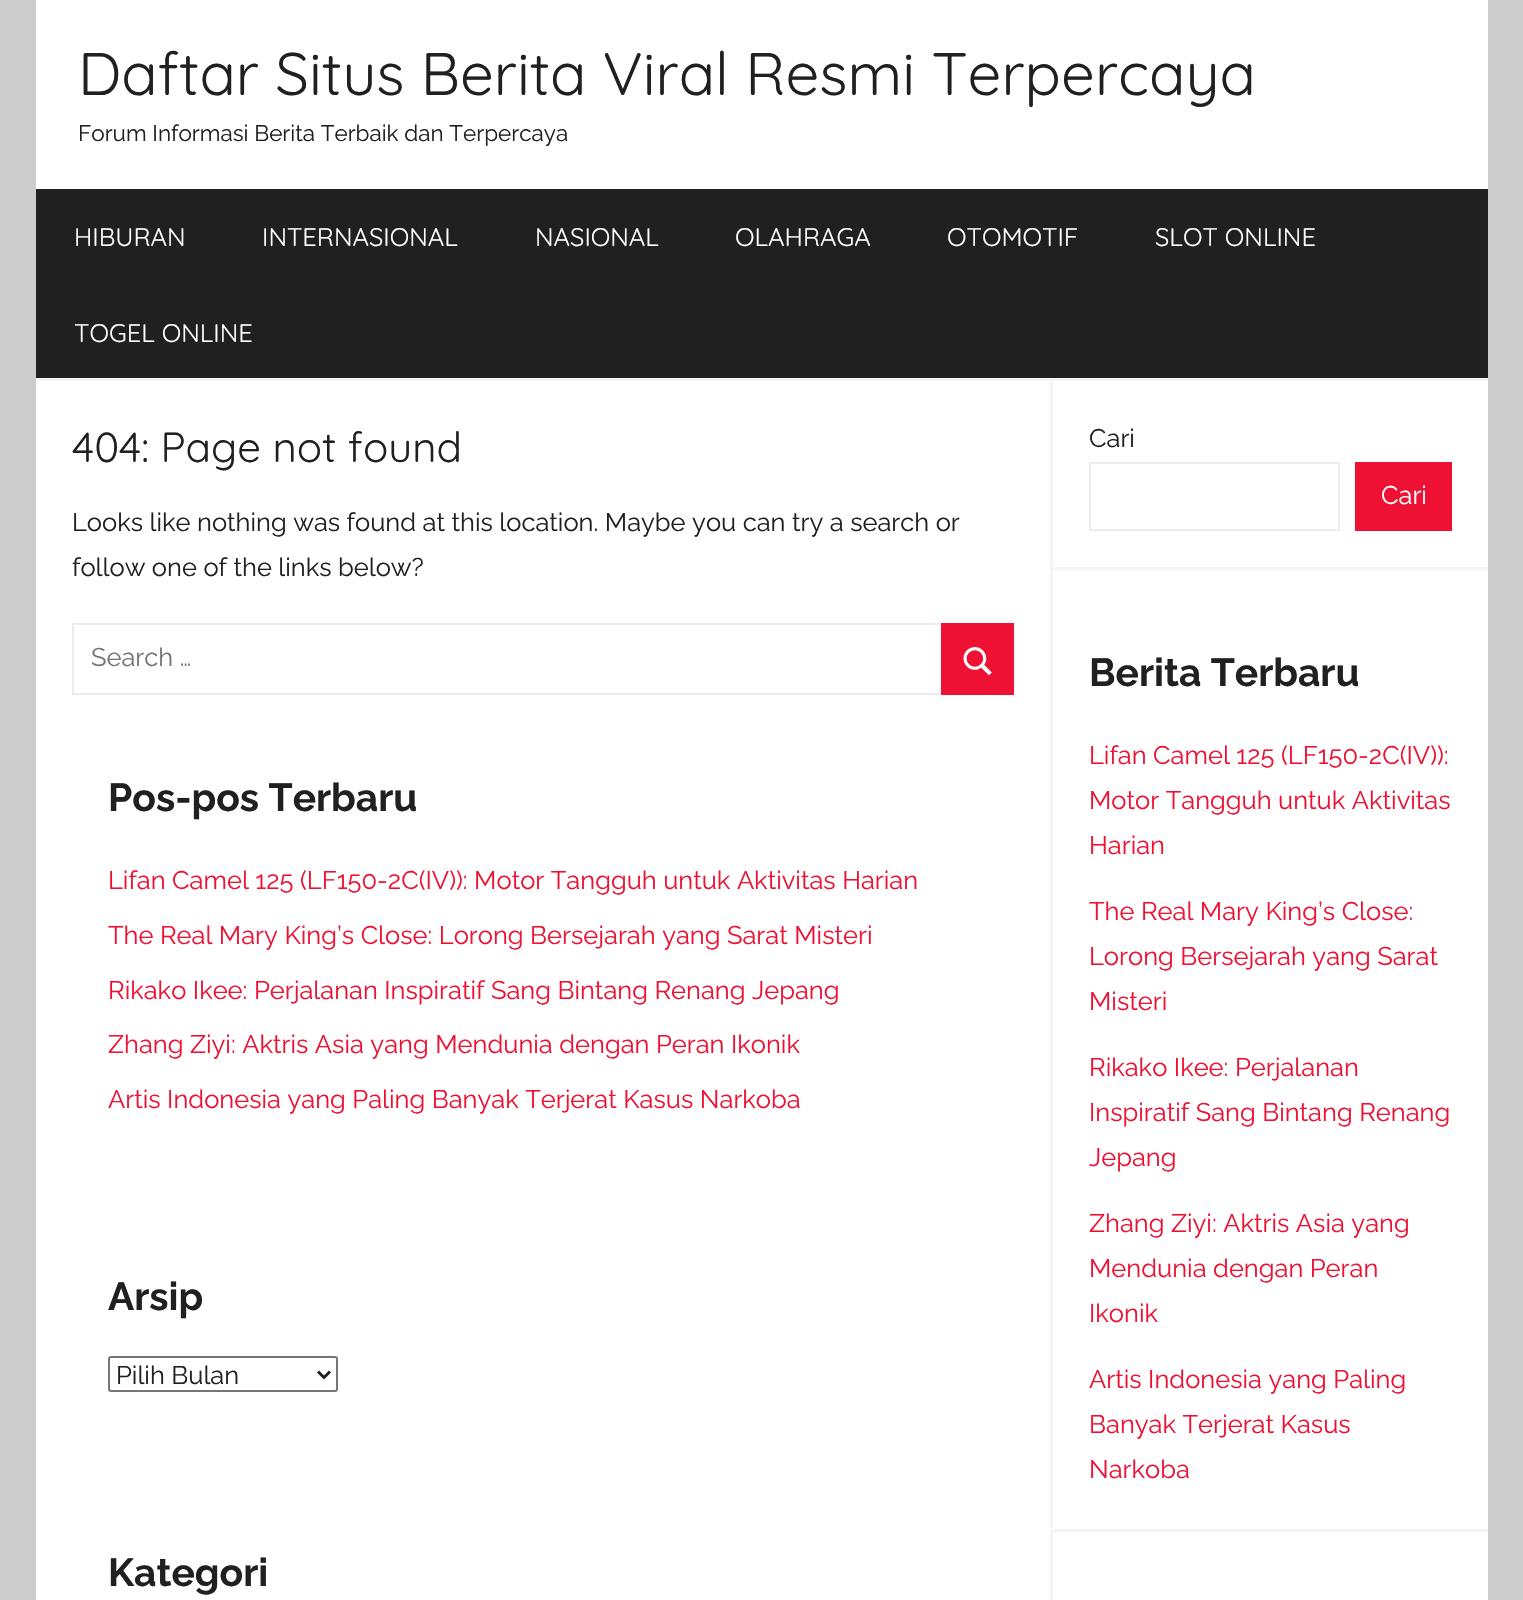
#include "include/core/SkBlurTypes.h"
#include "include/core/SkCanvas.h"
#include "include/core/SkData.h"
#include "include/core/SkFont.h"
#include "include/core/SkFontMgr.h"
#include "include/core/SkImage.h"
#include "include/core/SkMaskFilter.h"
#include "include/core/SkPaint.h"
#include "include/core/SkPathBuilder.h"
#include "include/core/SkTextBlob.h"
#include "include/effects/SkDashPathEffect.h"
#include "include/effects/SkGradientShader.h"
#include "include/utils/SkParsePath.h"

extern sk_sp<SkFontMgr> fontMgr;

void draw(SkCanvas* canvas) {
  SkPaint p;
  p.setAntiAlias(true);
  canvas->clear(SkColorSetRGB(204, 204, 204));
  p.setColor(SK_ColorWHITE);
  canvas->drawRect(SkRect::MakeLTRB(36, 0, 1488, 189), p);
  p.setColor(SkColorSetRGB(32, 32, 32));
  canvas->drawRect(SkRect::MakeLTRB(36, 189, 1488, 378), p);
  p.setColor(SkColorSetRGB(245, 245, 245));
  canvas->drawRect(SkRect::MakeLTRB(36, 378, 1488, 1600), p);
  p.setColor(SK_ColorWHITE);
  canvas->drawRect(SkRect::MakeLTRB(36, 381, 1050, 1600), p);
  p.setStyle(SkPaint::kStroke_Style);
  p.setStrokeWidth(2);
  p.setColor(SkColorSetRGB(236, 236, 236));
  canvas->drawRect(SkRect::MakeLTRB(73, 624, 1013, 694), p);
  p.setStyle(SkPaint::kFill_Style);
  p.setColor(SkColorSetRGB(238, 17, 51));
  canvas->drawRect(SkRect::MakeLTRB(941, 623, 1014, 695), p);
  canvas->drawImageRect(SkImages::DeferredFromEncodedData(SkData::MakeFromFileName("images/1.png")), SkRect::MakeLTRB(963, 647, 992, 676), SkSamplingOptions());
  p.setStyle(SkPaint::kStroke_Style);
  p.setColor(SkColorSetRGB(118, 118, 118));
  canvas->drawRoundRect(SkRect::MakeLTRB(109, 1357, 337, 1391), 2, 2, p);
  p.setStrokeWidth(3);
  p.setColor(SkColorSetRGB(32, 32, 32));
  canvas->drawPath(SkPathBuilder().moveTo(318, 1371.5f).lineTo(324, 1377.5f).lineTo(330, 1371.5f).detach(), p);
  p.setStyle(SkPaint::kFill_Style);
  p.setColor(SK_ColorWHITE);
  canvas->drawRect(SkRect::MakeLTRB(1053, 381, 1488, 1600), p);
  p.setColor(SkColorSetRGB(245, 245, 245));
  canvas->drawRect(SkRect::MakeLTRB(1053, 567, 1488, 570), p);
  p.setStyle(SkPaint::kStroke_Style);
  p.setStrokeWidth(2);
  p.setColor(SkColorSetRGB(236, 236, 236));
  canvas->drawRect(SkRect::MakeLTRB(1090, 463, 1339, 530), p);
  p.setStyle(SkPaint::kFill_Style);
  p.setColor(SkColorSetRGB(238, 17, 51));
  canvas->drawRect(SkRect::MakeLTRB(1355, 462, 1452, 531), p);
  p.setColor(SkColorSetRGB(245, 245, 245));
  canvas->drawRect(SkRect::MakeLTRB(1053, 1529, 1488, 1532), p);
  SkFont font1(fontMgr->matchFamilyStyle("Quicksand", SkFontStyle::Normal()), 60);
  font1.setSubpixel(true);
  p.setColor(SkColorSetRGB(32, 32, 32));
  canvas->drawString("Daftar Situs Berita Viral Resmi Terpercaya", 78, 95, font1, p);
  SkFont font2(fontMgr->matchFamilyStyle("Raleway", SkFontStyle::Normal()), 22.5f);
  font2.setSubpixel(true);
  canvas->drawString("Forum Informasi Berita Terbaik dan Terpercaya", 78, 141, font2, p);
  SkFont font3(fontMgr->matchFamilyStyle("Quicksand", SkFontStyle::Normal()), 25.5f);
  font3.setSubpixel(true);
  p.setColor(SK_ColorWHITE);
  canvas->drawString("HIBURAN", 74, 246, font3, p);
  canvas->drawString("INTERNASIONAL", 262, 246, font3, p);
  canvas->drawString("NASIONAL", 535, 246, font3, p);
  canvas->drawString("OLAHRAGA", 735, 246, font3, p);
  canvas->drawString("OTOMOTIF", 947, 246, font3, p);
  canvas->drawString("SLOT ONLINE", 1155, 246, font3, p);
  canvas->drawString("TOGEL ONLINE", 74, 342, font3, p);
  SkFont font4(fontMgr->matchFamilyStyle("Quicksand", SkFontStyle::Normal()), 42);
  font4.setSubpixel(true);
  p.setColor(SkColorSetRGB(32, 32, 32));
  canvas->drawString("404: Page not found", 72, 462, font4, p);
  SkFont font5(fontMgr->matchFamilyStyle("Raleway", SkFontStyle::Normal()), 25.5f);
  font5.setSubpixel(true);
  canvas->drawString("Looks like nothing was found at this location. Maybe you can try a search or", 72, 531, font5, p);
  canvas->drawString("follow one of the links below?", 72, 576, font5, p);
  p.setColor(SkColorSetRGB(117, 117, 117));
  canvas->drawString("Search …", 91, 666, font5, p);
  SkFont font6(fontMgr->matchFamilyStyle("Raleway", SkFontStyle::Bold()), 39);
  font6.setSubpixel(true);
  p.setColor(SkColorSetRGB(32, 32, 32));
  canvas->drawString("Pos-pos Terbaru", 108, 811, font6, p);
  p.setColor(SkColorSetRGB(238, 17, 51));
  canvas->drawString("Lifan Camel 125 (LF150-2C(IV)): Motor Tangguh untuk Aktivitas Harian", 108, 889, font5, p);
  canvas->drawString("The Real Mary King’s Close: Lorong Bersejarah yang Sarat Misteri", 108, 944, font5, p);
  canvas->drawString("Rikako Ikee: Perjalanan Inspiratif Sang Bintang Renang Jepang", 108, 999, font5, p);
  canvas->drawString("Zhang Ziyi: Aktris Asia yang Mendunia dengan Peran Ikonik", 108, 1053, font5, p);
  canvas->drawString("Artis Indonesia yang Paling Banyak Terjerat Kasus Narkoba", 108, 1108, font5, p);
  p.setColor(SkColorSetRGB(32, 32, 32));
  canvas->drawString("Arsip", 108, 1310, font6, p);
  canvas->drawString("Pilih Bulan", 116, 1384, font5, p);
  canvas->drawString("Kategori", 108, 1586, font6, p);
  canvas->drawString("Cari", 1089, 447, font5, p);
  p.setColor(SK_ColorWHITE);
  canvas->drawString("Cari", 1381, 504, font5, p);
  p.setColor(SkColorSetRGB(32, 32, 32));
  canvas->drawString("Berita Terbaru", 1089, 686, font6, p);
  p.setColor(SkColorSetRGB(238, 17, 51));
  canvas->drawString("Lifan Camel 125 (LF150-2C(IV)):", 1089, 764, font5, p);
  canvas->drawString("Motor Tangguh untuk Aktivitas", 1089, 809, font5, p);
  canvas->drawString("Harian", 1089, 854, font5, p);
  canvas->drawString("The Real Mary King’s Close:", 1089, 920, font5, p);
  canvas->drawString("Lorong Bersejarah yang Sarat", 1089, 965, font5, p);
  canvas->drawString("Misteri", 1089, 1010, font5, p);
  canvas->drawString("Rikako Ikee: Perjalanan", 1089, 1076, font5, p);
  canvas->drawString("Inspiratif Sang Bintang Renang", 1089, 1121, font5, p);
  canvas->drawString("Jepang", 1089, 1166, font5, p);
  canvas->drawString("Zhang Ziyi: Aktris Asia yang", 1089, 1232, font5, p);
  canvas->drawString("Mendunia dengan Peran", 1089, 1277, font5, p);
  canvas->drawString("Ikonik", 1089, 1322, font5, p);
  canvas->drawString("Artis Indonesia yang Paling", 1089, 1388, font5, p);
  canvas->drawString("Banyak Terjerat Kasus", 1089, 1433, font5, p);
  canvas->drawString("Narkoba", 1089, 1478, font5, p);
}
